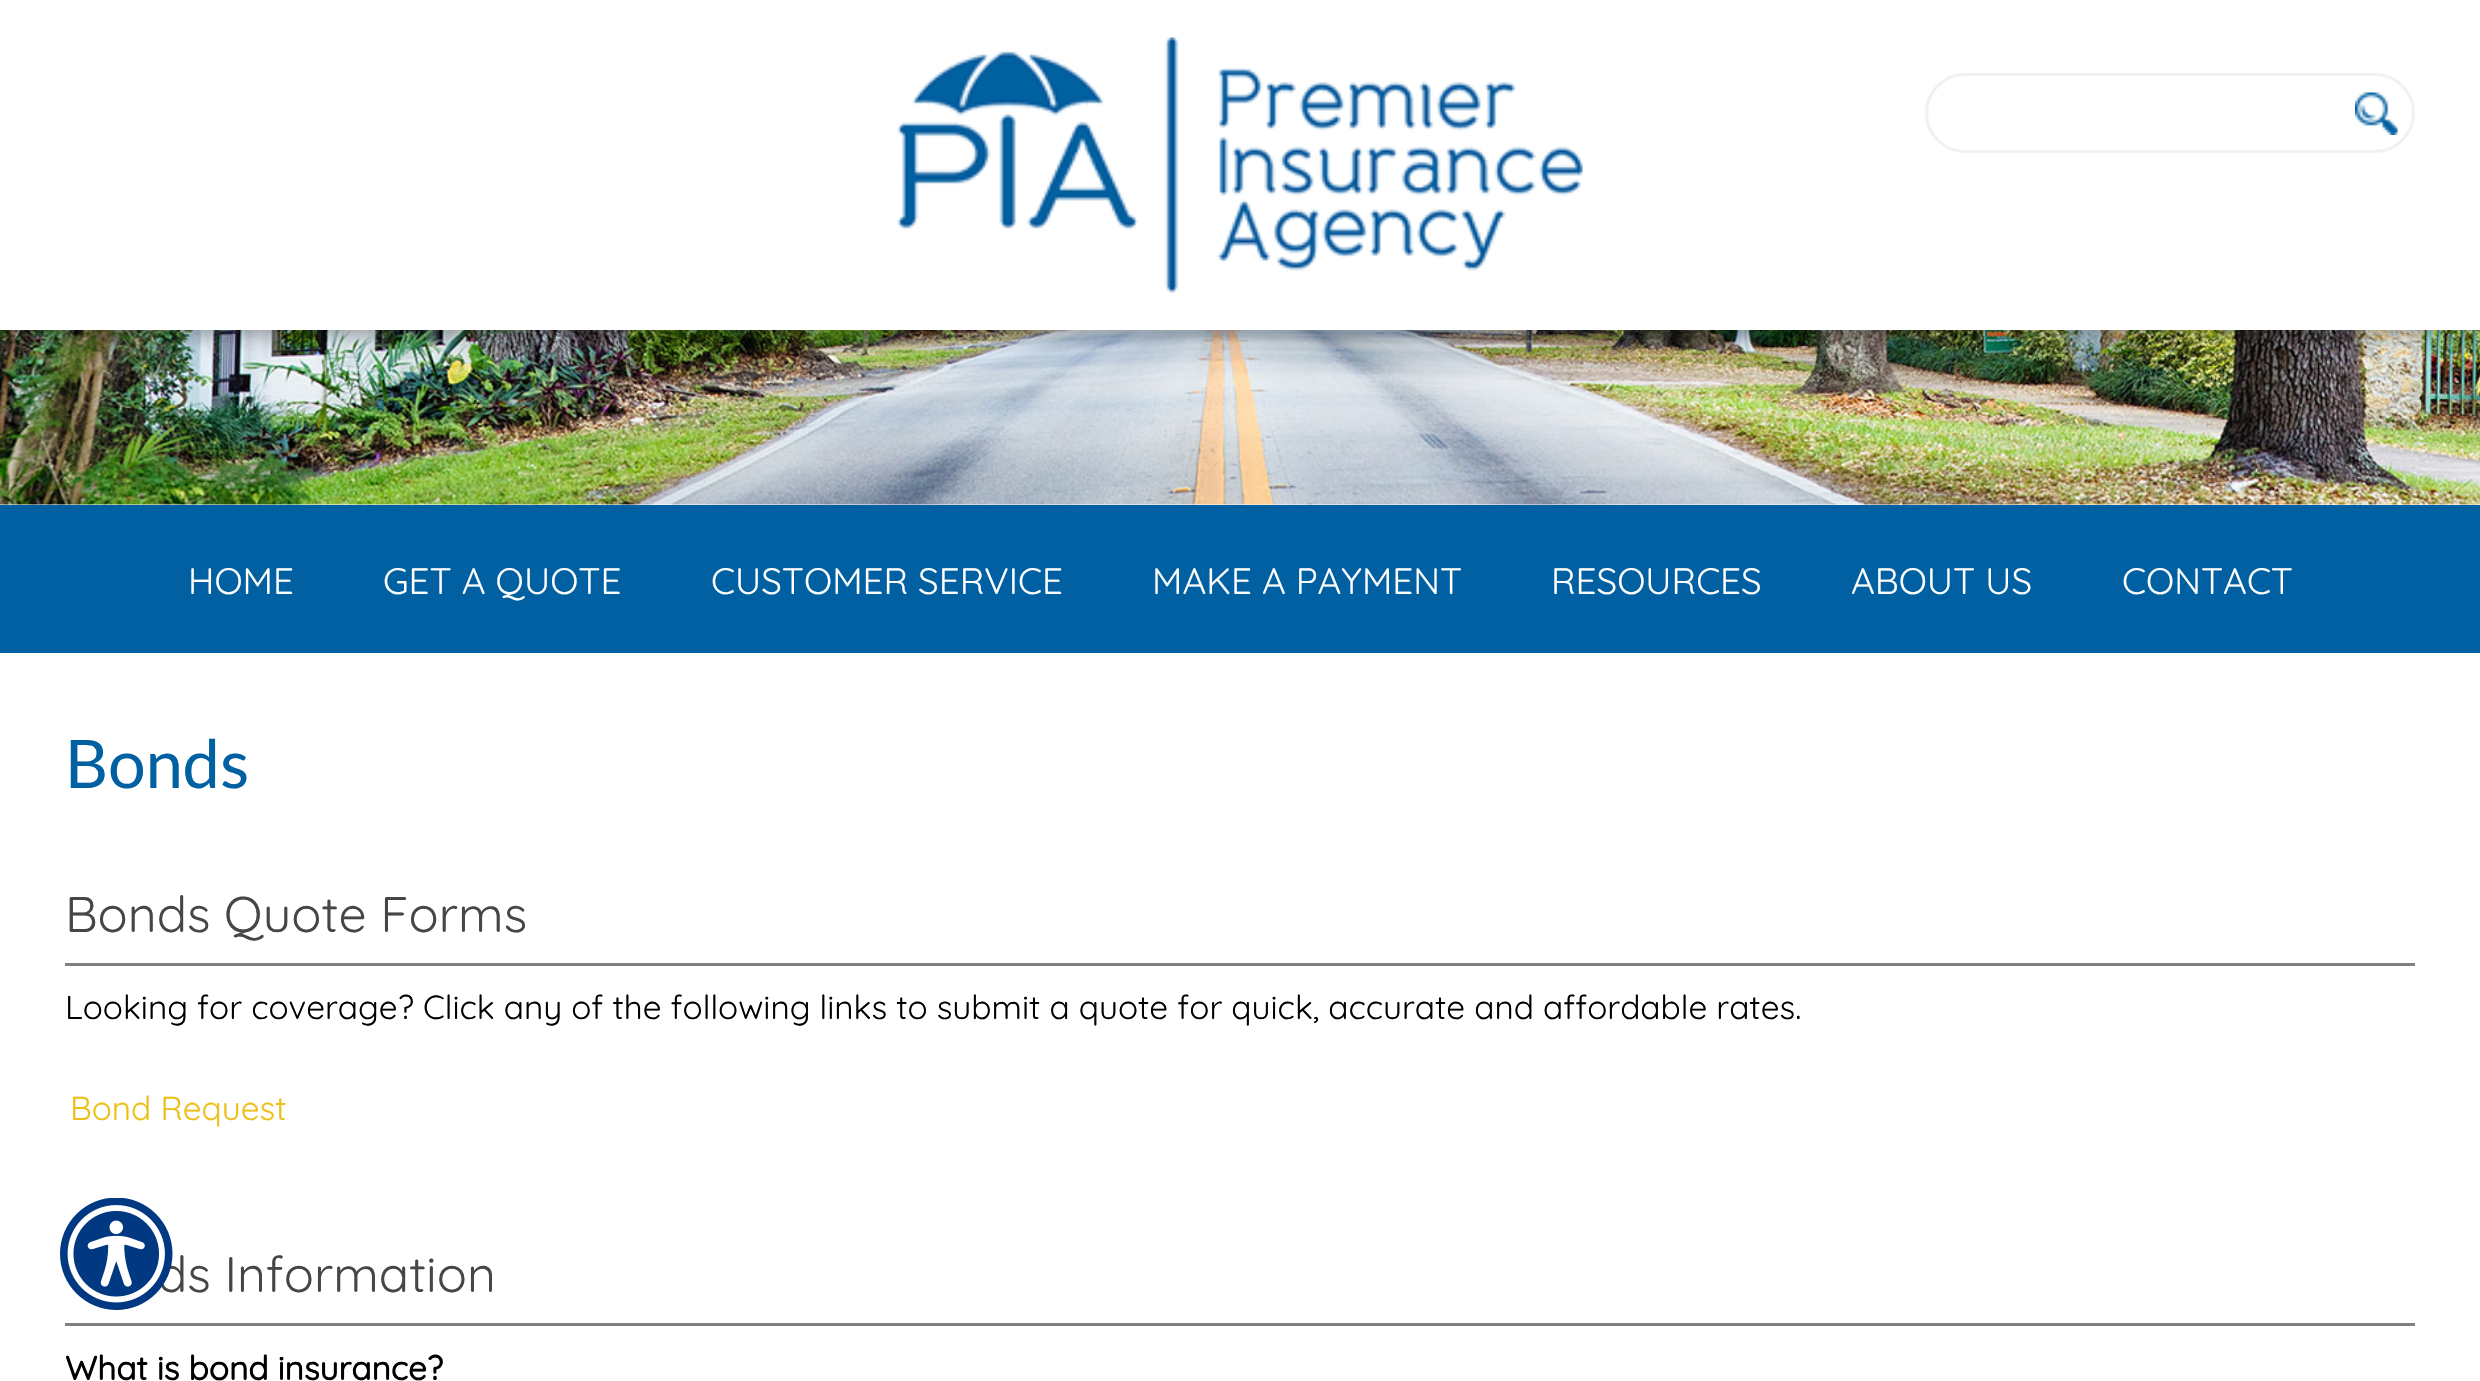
#include "include/core/SkBlurTypes.h"
#include "include/core/SkCanvas.h"
#include "include/core/SkData.h"
#include "include/core/SkFont.h"
#include "include/core/SkFontMgr.h"
#include "include/core/SkImage.h"
#include "include/core/SkMaskFilter.h"
#include "include/core/SkPaint.h"
#include "include/core/SkPathBuilder.h"
#include "include/core/SkTextBlob.h"
#include "include/effects/SkDashPathEffect.h"
#include "include/effects/SkGradientShader.h"
#include "include/utils/SkParsePath.h"

extern sk_sp<SkFontMgr> fontMgr;

void draw(SkCanvas* canvas) {
  SkPaint p;
  p.setAntiAlias(true);
  canvas->clear(SK_ColorWHITE);
  canvas->drawImageRect(SkImages::DeferredFromEncodedData(SkData::MakeFromFileName("images/3.png")), SkRect::MakeLTRB(0, 330, 2480, 505), SkSamplingOptions());
  p.setColor(SkColorSetARGB(128, 0, 0, 0));
  p.setMaskFilter(SkMaskFilter::MakeBlur(kNormal_SkBlurStyle, 12.5f));
  canvas->drawRect(SkRect::MakeLTRB(0, 0, 2480, 330), p);
  p.setMaskFilter(nullptr);
  p.setColor(SK_ColorWHITE);
  canvas->drawRect(SkRect::MakeLTRB(0, 0, 2480, 330), p);
  canvas->drawImageRect(SkImages::DeferredFromEncodedData(SkData::MakeFromFileName("images/1.png")), SkRect::MakeLTRB(897, 37, 1583, 293), SkSamplingOptions());
  p.setStyle(SkPaint::kStroke_Style);
  p.setStrokeWidth(3);
  p.setColor(SkColorSetRGB(241, 241, 241));
  canvas->drawRoundRect(SkRect::MakeLTRB(1926.5f, 74.5f, 2413.5f, 151.5f), 38.5f, 38.5f, p);
  canvas->drawImageRect(SkImages::DeferredFromEncodedData(SkData::MakeFromFileName("images/2.png")), SkRect::MakeLTRB(2355, 92, 2398, 135), SkSamplingOptions());
  p.setStyle(SkPaint::kFill_Style);
  p.setColor(SkColorSetRGB(1, 96, 162));
  canvas->drawRect(SkRect::MakeLTRB(0, 505, 2480, 653), p);
  p.setColor(SkColorSetRGB(128, 128, 128));
  canvas->drawRect(SkRect::MakeLTRB(65, 963, 2415, 966), p);
  canvas->drawRect(SkRect::MakeLTRB(65, 1323, 2415, 1326), p);
  SkFont font1(fontMgr->matchFamilyStyle("Quicksand", SkFontStyle(300, SkFontStyle::kNormal_Width, SkFontStyle::kUpright_Slant)), 36.75f);
  font1.setSubpixel(true);
  p.setColor(SK_ColorWHITE);
  canvas->drawString("HOME", 188, 594, font1, p);
  canvas->drawString("GET A QUOTE", 383, 594, font1, p);
  canvas->drawString("CUSTOMER SERVICE", 711, 594, font1, p);
  canvas->drawString("MAKE A PAYMENT", 1152, 594, font1, p);
  canvas->drawString("RESOURCES", 1551, 594, font1, p);
  canvas->drawString("ABOUT US", 1851, 594, font1, p);
  canvas->drawString("CONTACT", 2122, 594, font1, p);
  SkFont font2(fontMgr->matchFamilyStyle("Lato", SkFontStyle::Normal()), 67);
  font2.setSubpixel(true);
  p.setColor(SkColorSetRGB(0, 96, 161));
  canvas->drawString("Bonds", 65, 788, font2, p);
  SkFont font3(fontMgr->matchFamilyStyle("Quicksand", SkFontStyle(300, SkFontStyle::kNormal_Width, SkFontStyle::kUpright_Slant)), 50);
  font3.setSubpixel(true);
  p.setColor(SkColorSetRGB(70, 70, 70));
  canvas->drawString("Bonds Quote Forms", 65, 932, font3, p);
  SkFont font4(fontMgr->matchFamilyStyle("Quicksand", SkFontStyle(300, SkFontStyle::kNormal_Width, SkFontStyle::kUpright_Slant)), 33.33f);
  font4.setSubpixel(true);
  p.setColor(SK_ColorBLACK);
  canvas->drawString("Looking for coverage? Click any of the following links to submit a quote for quick, accurate and affordable rates.", 65, 1019, font4, p);
  p.setColor(SkColorSetRGB(237, 192, 24));
  canvas->drawString("Bond Request", 70, 1120, font4, p);
  p.setColor(SkColorSetRGB(70, 70, 70));
  canvas->drawString("ds Information", 157, 1292, font3, p);
  SkFont font5(fontMgr->matchFamilyStyle("Quicksand", SkFontStyle::Bold()), 33.33f);
  font5.setSubpixel(true);
  p.setColor(SK_ColorBLACK);
  canvas->drawString("What is bond insurance?", 65, 1380, font5, p);
  canvas->drawImageRect(SkImages::DeferredFromEncodedData(SkData::MakeFromFileName("images/4.png")), SkRect::MakeLTRB(60, 1198, 173, 1310), SkSamplingOptions());
}
